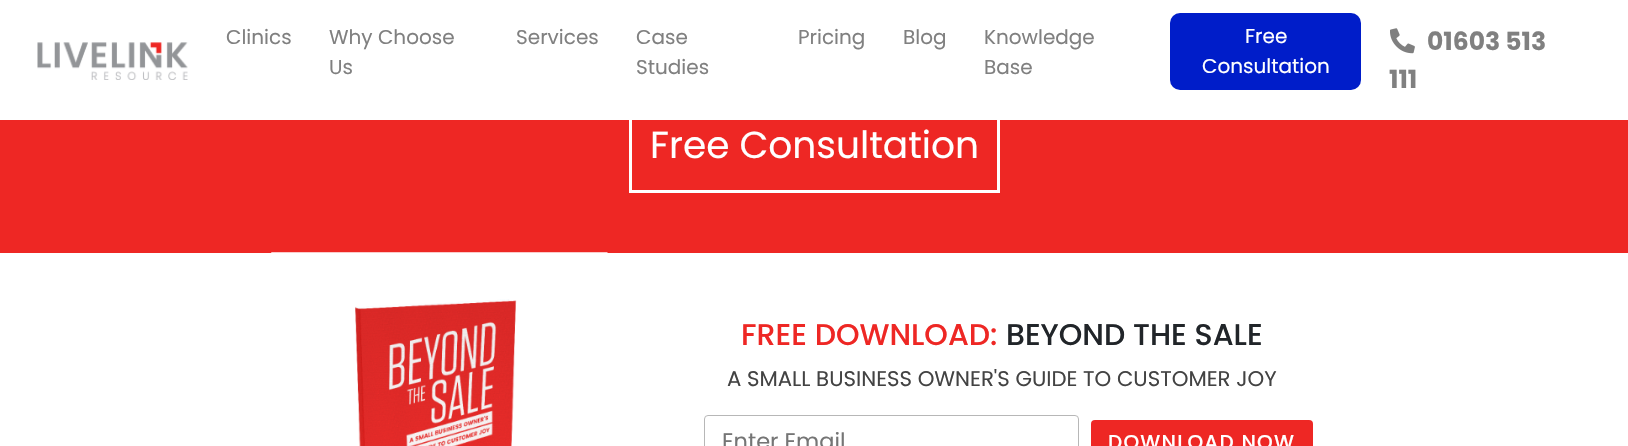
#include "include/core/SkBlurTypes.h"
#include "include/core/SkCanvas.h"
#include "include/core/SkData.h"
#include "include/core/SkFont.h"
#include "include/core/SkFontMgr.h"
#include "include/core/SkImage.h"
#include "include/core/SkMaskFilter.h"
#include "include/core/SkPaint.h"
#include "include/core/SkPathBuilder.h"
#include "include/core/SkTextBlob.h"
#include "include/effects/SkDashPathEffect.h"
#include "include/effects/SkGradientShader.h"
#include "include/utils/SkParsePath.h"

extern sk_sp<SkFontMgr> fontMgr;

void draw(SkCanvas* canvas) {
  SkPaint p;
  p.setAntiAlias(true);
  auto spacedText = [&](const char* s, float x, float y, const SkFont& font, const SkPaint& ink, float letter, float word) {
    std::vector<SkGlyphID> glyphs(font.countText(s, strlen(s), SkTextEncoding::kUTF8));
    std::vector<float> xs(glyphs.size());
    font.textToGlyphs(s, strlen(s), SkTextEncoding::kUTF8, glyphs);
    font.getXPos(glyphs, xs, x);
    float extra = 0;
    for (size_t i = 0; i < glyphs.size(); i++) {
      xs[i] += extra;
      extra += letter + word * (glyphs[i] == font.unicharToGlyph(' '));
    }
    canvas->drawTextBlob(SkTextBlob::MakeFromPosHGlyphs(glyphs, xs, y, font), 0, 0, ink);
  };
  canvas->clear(SK_ColorWHITE);
  canvas->drawImageRect(SkImages::DeferredFromEncodedData(SkData::MakeFromFileName("images/1.png")), SkRect::MakeLTRB(37, 42, 188, 80), SkSamplingOptions());
  p.setColor(SkColorSetRGB(0, 29, 201));
  canvas->drawRoundRect(SkRect::MakeLTRB(1170, 13, 1361, 90), 10, 10, p);
  canvas->drawImageRect(SkImages::DeferredFromEncodedData(SkData::MakeFromFileName("images/2.png")), SkRect::MakeLTRB(1390, 28, 1415, 54), SkSamplingOptions());
  p.setColor(SkColorSetRGB(238, 39, 36));
  canvas->drawRect(SkRect::MakeLTRB(0, 120, 1628, 253), p);
  p.setStyle(SkPaint::kStroke_Style);
  p.setStrokeWidth(3);
  p.setColor(SK_ColorWHITE);
  canvas->drawRect(SkRect::MakeLTRB(630.5f, 97.5f, 998.5f, 191.5f), p);
  canvas->drawImageRect(SkImages::DeferredFromEncodedData(SkData::MakeFromFileName("images/3.png")), SkRect::MakeLTRB(271, 252, 608, 446), SkSamplingOptions());
  p.setStrokeWidth(1);
  p.setColor(SkColorSetRGB(183, 183, 183));
  canvas->drawRoundRect(SkRect::MakeLTRB(704.5f, 415.5f, 1078.5f, 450.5f), 3.5f, 3.5f, p);
  p.setStyle(SkPaint::kFill_Style);
  p.setColor(SkColorSetRGB(238, 39, 36));
  canvas->drawRoundRect(SkRect::MakeLTRB(1091, 420, 1313, 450), 4, 4, p);
  SkFont font1(fontMgr->matchFamilyStyle("Poppins", SkFontStyle::Normal()), 20);
  font1.setSubpixel(true);
  p.setColor(SkColorSetRGB(128, 128, 128));
  canvas->drawString("Clinics", 226, 44, font1, p);
  canvas->drawString("Why Choose", 329, 44, font1, p);
  canvas->drawString("Us", 329, 74, font1, p);
  canvas->drawString("Services", 516, 44, font1, p);
  canvas->drawString("Case", 636, 44, font1, p);
  canvas->drawString("Studies", 636, 74, font1, p);
  canvas->drawString("Pricing", 798, 44, font1, p);
  canvas->drawString("Blog", 903, 44, font1, p);
  canvas->drawString("Knowledge", 984, 44, font1, p);
  canvas->drawString("Base", 984, 74, font1, p);
  p.setColor(SK_ColorWHITE);
  canvas->drawString("Free", 1245, 43, font1, p);
  canvas->drawString("Consultation", 1202, 73, font1, p);
  SkFont font2(fontMgr->matchFamilyStyle("Poppins", SkFontStyle::Bold()), 25);
  font2.setSubpixel(true);
  p.setColor(SkColorSetRGB(128, 128, 128));
  canvas->drawString("01603 513", 1427, 50, font2, p);
  canvas->drawString("111", 1389, 88, font2, p);
  SkFont font3(fontMgr->matchFamilyStyle("Poppins", SkFontStyle::Normal()), 37.5f);
  font3.setSubpixel(true);
  p.setColor(SK_ColorWHITE);
  canvas->drawString("Free Consultation", 650, 158, font3, p);
  SkFont font4(fontMgr->matchFamilyStyle("Poppins", SkFontStyle(500, SkFontStyle::kNormal_Width, SkFontStyle::kUpright_Slant)), 30);
  font4.setSubpixel(true);
  p.setColor(SkColorSetRGB(238, 39, 36));
  canvas->drawString("FREE DOWNLOAD:", 741, 345, font4, p);
  p.setColor(SkColorSetRGB(33, 37, 41));
  canvas->drawString("BEYOND THE SALE", 1006, 345, font4, p);
  SkFont font5(fontMgr->matchFamilyStyle("Poppins", SkFontStyle::Normal()), 21.25f);
  font5.setSubpixel(true);
  p.setColor(SkColorSetRGB(67, 67, 67));
  canvas->drawString("A SMALL BUSINESS OWNER'S GUIDE TO CUSTOMER JOY", 727, 386, font5, p);
  SkFont font6(fontMgr->matchFamilyStyle("Poppins", SkFontStyle::Normal()), 22.5f);
  font6.setSubpixel(true);
  p.setColor(SkColorSetRGB(117, 117, 117));
  canvas->drawString("Enter Email", 722, 449, font6, p);
  SkFont font7(fontMgr->matchFamilyStyle("Poppins", SkFontStyle(500, SkFontStyle::kNormal_Width, SkFontStyle::kUpright_Slant)), 20);
  font7.setSubpixel(true);
  p.setColor(SK_ColorWHITE);
  spacedText("DOWNLOAD NOW", 1108, 449, font7, p, 1.25f, 0);
}
